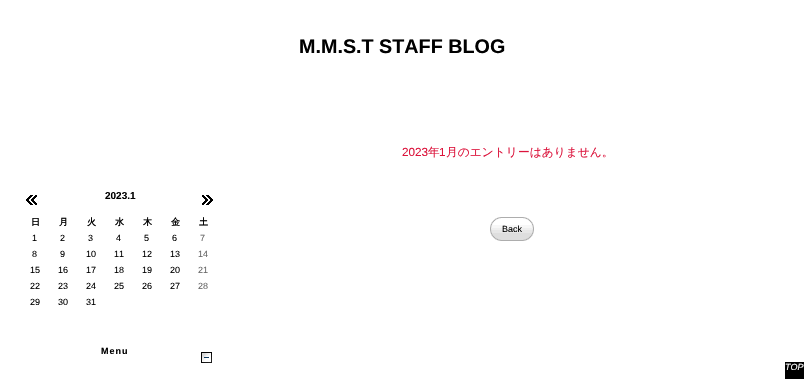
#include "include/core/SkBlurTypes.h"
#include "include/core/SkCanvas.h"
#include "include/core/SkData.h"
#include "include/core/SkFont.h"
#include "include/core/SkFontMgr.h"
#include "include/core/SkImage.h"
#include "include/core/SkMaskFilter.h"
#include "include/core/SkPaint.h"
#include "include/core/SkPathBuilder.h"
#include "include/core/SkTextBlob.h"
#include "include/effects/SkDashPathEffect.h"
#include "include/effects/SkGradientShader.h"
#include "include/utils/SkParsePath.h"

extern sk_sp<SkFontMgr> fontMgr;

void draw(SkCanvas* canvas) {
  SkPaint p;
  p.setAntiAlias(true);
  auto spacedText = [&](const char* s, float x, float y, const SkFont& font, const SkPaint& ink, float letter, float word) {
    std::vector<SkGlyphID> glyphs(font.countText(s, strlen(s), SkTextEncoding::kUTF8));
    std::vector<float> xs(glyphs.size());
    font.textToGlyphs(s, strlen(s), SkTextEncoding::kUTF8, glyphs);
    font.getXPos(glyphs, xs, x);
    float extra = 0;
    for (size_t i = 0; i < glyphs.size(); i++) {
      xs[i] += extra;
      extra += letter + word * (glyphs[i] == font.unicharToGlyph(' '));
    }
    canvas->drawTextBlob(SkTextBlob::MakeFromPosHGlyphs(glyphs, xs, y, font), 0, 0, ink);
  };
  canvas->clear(SK_ColorWHITE);
  canvas->drawImageRect(SkImages::DeferredFromEncodedData(SkData::MakeFromFileName("images/1.png")), SkRect::MakeLTRB(24, 195, 39, 205), SkSamplingOptions());
  canvas->drawImageRect(SkImages::DeferredFromEncodedData(SkData::MakeFromFileName("images/2.png")), SkRect::MakeLTRB(200, 195, 213, 205), SkSamplingOptions());
  canvas->drawImageRect(SkImages::DeferredFromEncodedData(SkData::MakeFromFileName("images/3.png")), SkRect::MakeLTRB(201, 352, 212, 363), SkSamplingOptions());
  canvas->drawImageRect(SkImages::DeferredFromEncodedData(SkData::MakeFromFileName("images/4.png")), SkRect::MakeLTRB(490, 217, 520, 241), SkSamplingOptions());
  canvas->drawImageRect(SkImages::DeferredFromEncodedData(SkData::MakeFromFileName("images/5.png")), SkRect::MakeLTRB(520, 217, 534, 241), SkSamplingOptions());
  p.setColor(SK_ColorBLACK);
  canvas->drawRect(SkRect::MakeLTRB(785, 362, 804, 379), p);
  SkFont font1(fontMgr->matchFamilyStyle("Liberation Sans", SkFontStyle::Bold()), 19.75f);
  font1.setSubpixel(true);
  canvas->drawString("M.M.S.T STAFF BLOG", 299, 53, font1, p);
  SkFont font2(fontMgr->matchFamilyStyle("Liberation Sans", SkFontStyle::Bold()), 10);
  font2.setSubpixel(true);
  canvas->drawString("2023.1", 105, 199, font2, p);
  SkFont font3(fontMgr->matchFamilyStyle("WenQuanYi Zen Hei", SkFontStyle::Bold()), 9);
  font3.setSubpixel(true);
  canvas->drawString("日", 31, 225, font3, p);
  canvas->drawString("月", 59, 225, font3, p);
  canvas->drawString("火", 87, 225, font3, p);
  canvas->drawString("水", 115, 225, font3, p);
  canvas->drawString("木", 143, 225, font3, p);
  canvas->drawString("金", 171, 225, font3, p);
  canvas->drawString("土", 199, 225, font3, p);
  SkFont font4(fontMgr->matchFamilyStyle("Liberation Sans", SkFontStyle::Normal()), 9);
  font4.setSubpixel(true);
  canvas->drawString("1", 32, 241, font4, p);
  canvas->drawString("2", 60, 241, font4, p);
  canvas->drawString("3", 88, 241, font4, p);
  canvas->drawString("4", 116, 241, font4, p);
  canvas->drawString("5", 144, 241, font4, p);
  canvas->drawString("6", 172, 241, font4, p);
  p.setColor(SkColorSetRGB(102, 102, 102));
  canvas->drawString("7", 200, 241, font4, p);
  p.setColor(SK_ColorBLACK);
  canvas->drawString("8", 32, 257, font4, p);
  canvas->drawString("9", 60, 257, font4, p);
  canvas->drawString("10", 86, 257, font4, p);
  canvas->drawString("11", 114, 257, font4, p);
  canvas->drawString("12", 142, 257, font4, p);
  canvas->drawString("13", 170, 257, font4, p);
  p.setColor(SkColorSetRGB(102, 102, 102));
  canvas->drawString("14", 198, 257, font4, p);
  p.setColor(SK_ColorBLACK);
  canvas->drawString("15", 30, 273, font4, p);
  canvas->drawString("16", 58, 273, font4, p);
  canvas->drawString("17", 86, 273, font4, p);
  canvas->drawString("18", 114, 273, font4, p);
  canvas->drawString("19", 142, 273, font4, p);
  canvas->drawString("20", 170, 273, font4, p);
  p.setColor(SkColorSetRGB(102, 102, 102));
  canvas->drawString("21", 198, 273, font4, p);
  p.setColor(SK_ColorBLACK);
  canvas->drawString("22", 30, 289, font4, p);
  canvas->drawString("23", 58, 289, font4, p);
  canvas->drawString("24", 86, 289, font4, p);
  canvas->drawString("25", 114, 289, font4, p);
  canvas->drawString("26", 142, 289, font4, p);
  canvas->drawString("27", 170, 289, font4, p);
  p.setColor(SkColorSetRGB(102, 102, 102));
  canvas->drawString("28", 198, 289, font4, p);
  p.setColor(SK_ColorBLACK);
  canvas->drawString("29", 30, 305, font4, p);
  canvas->drawString("30", 58, 305, font4, p);
  canvas->drawString("31", 86, 305, font4, p);
  SkFont font5(fontMgr->matchFamilyStyle("Liberation Sans", SkFontStyle::Bold()), 9);
  font5.setSubpixel(true);
  spacedText("Menu", 101, 354, font5, p, 1, 0);
  SkFont font6(fontMgr->matchFamilyStyle("Liberation Sans", SkFontStyle::Normal()), 11.75f);
  font6.setSubpixel(true);
  p.setColor(SkColorSetRGB(220, 20, 60));
  canvas->drawString("2023", 402, 156, font6, p);
  SkFont font7(fontMgr->matchFamilyStyle("WenQuanYi Zen Hei", SkFontStyle(500, SkFontStyle::kNormal_Width, SkFontStyle::kUpright_Slant)), 11.75f);
  font7.setSubpixel(true);
  canvas->drawString("年", 428, 156, font7, p);
  canvas->drawString("1", 439, 156, font6, p);
  canvas->drawString("月のエントリーはありません。", 446, 156, font7, p);
  p.setColor(SK_ColorBLACK);
  canvas->drawString("Back", 502, 232, font4, p);
  SkFont font8(fontMgr->matchFamilyStyle("Liberation Sans", SkFontStyle::Italic()), 9);
  font8.setSubpixel(true);
  p.setColor(SK_ColorWHITE);
  canvas->drawString("TOP", 785, 370, font8, p);
}
